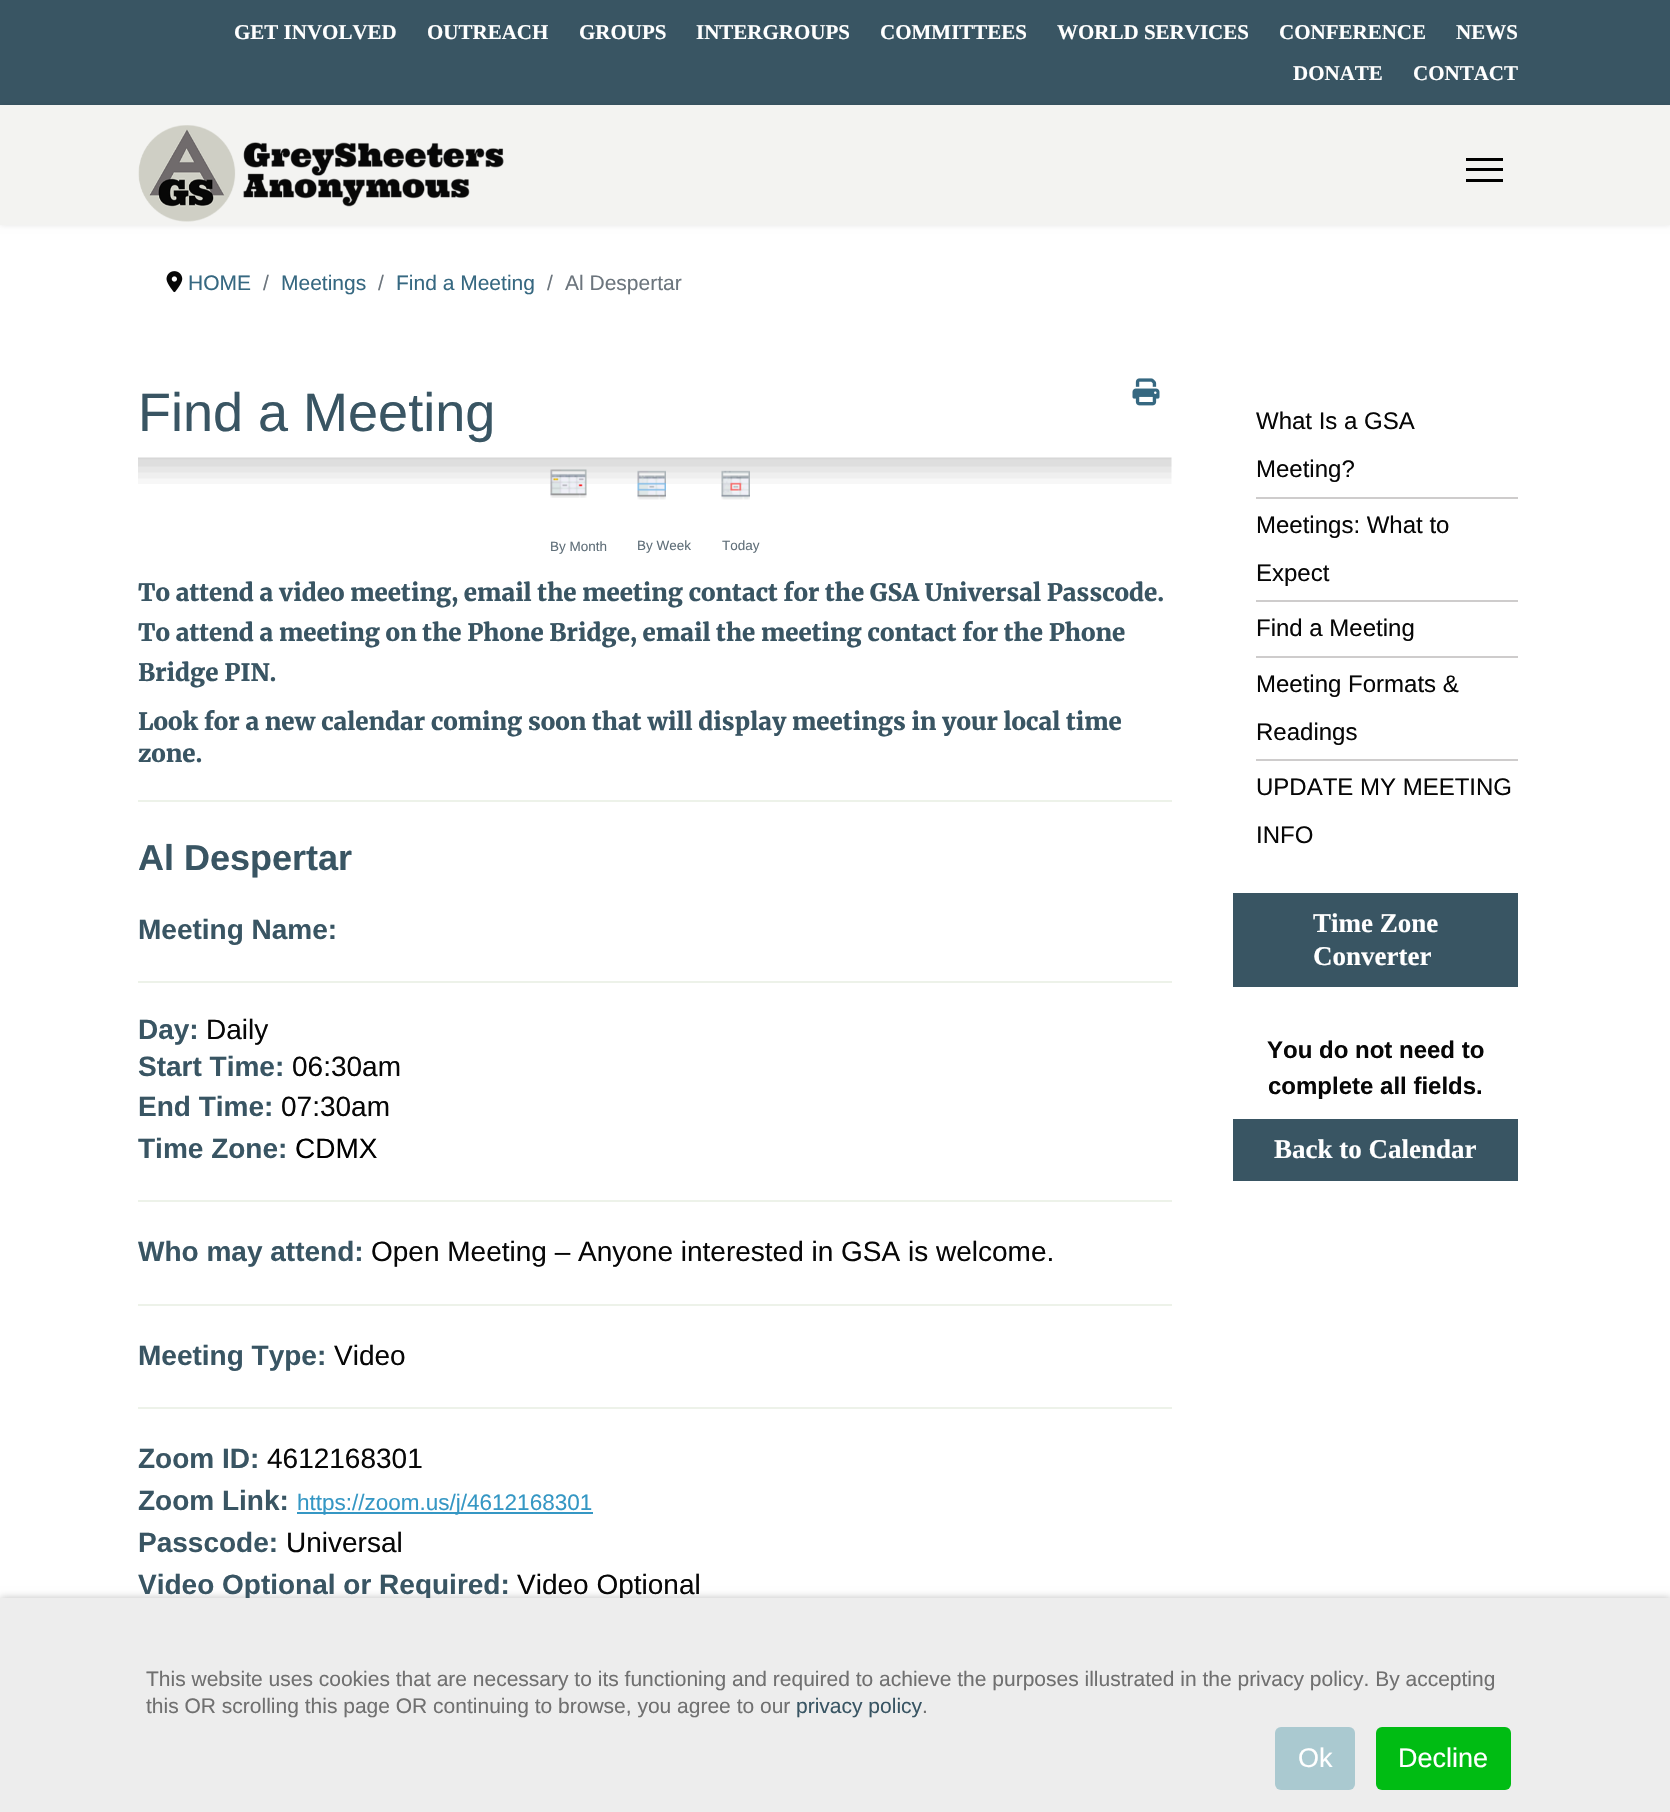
#include "include/core/SkBlurTypes.h"
#include "include/core/SkCanvas.h"
#include "include/core/SkData.h"
#include "include/core/SkFont.h"
#include "include/core/SkFontMgr.h"
#include "include/core/SkImage.h"
#include "include/core/SkMaskFilter.h"
#include "include/core/SkPaint.h"
#include "include/core/SkPathBuilder.h"
#include "include/core/SkTextBlob.h"
#include "include/effects/SkDashPathEffect.h"
#include "include/effects/SkGradientShader.h"
#include "include/utils/SkParsePath.h"

extern sk_sp<SkFontMgr> fontMgr;

void draw(SkCanvas* canvas) {
  SkPaint p;
  p.setAntiAlias(true);
  canvas->clear(SK_ColorWHITE);
  p.setColor(SkColorSetRGB(57, 85, 99));
  canvas->drawRect(SkRect::MakeLTRB(0, 0, 1670, 105), p);
  p.setColor(SkColorSetARGB(26, 0, 0, 0));
  p.setMaskFilter(SkMaskFilter::MakeBlur(kNormal_SkBlurStyle, 3));
  canvas->drawRect(SkRect::MakeLTRB(0, 105, 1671, 225), p);
  p.setMaskFilter(nullptr);
  p.setColor(SkColorSetRGB(243, 243, 241));
  canvas->drawRect(SkRect::MakeLTRB(0, 105, 1670, 225), p);
  canvas->drawImageRect(SkImages::DeferredFromEncodedData(SkData::MakeFromFileName("images/1.png")), SkRect::MakeLTRB(138, 125, 504, 222), SkSamplingOptions());
  p.setColor(SK_ColorBLACK);
  canvas->drawRect(SkRect::MakeLTRB(1466, 158, 1503, 161), p);
  canvas->drawRect(SkRect::MakeLTRB(1466, 168, 1503, 171), p);
  canvas->drawRect(SkRect::MakeLTRB(1466, 179, 1503, 182), p);
  canvas->drawImageRect(SkImages::DeferredFromEncodedData(SkData::MakeFromFileName("images/2.png")), SkRect::MakeLTRB(166, 271, 183, 293), SkSamplingOptions());
  canvas->drawImageRect(SkImages::DeferredFromEncodedData(SkData::MakeFromFileName("images/3.png")), SkRect::MakeLTRB(1132, 378, 1160, 406), SkSamplingOptions());
  canvas->drawImageRect(SkImages::DeferredFromEncodedData(SkData::MakeFromFileName("images/4.png")), SkRect::MakeLTRB(138, 457, 1172, 484), SkSamplingOptions());
  canvas->drawImageRect(SkImages::DeferredFromEncodedData(SkData::MakeFromFileName("images/5.png")), SkRect::MakeLTRB(550, 469, 587, 498), SkSamplingOptions());
  canvas->drawImageRect(SkImages::DeferredFromEncodedData(SkData::MakeFromFileName("images/6.png")), SkRect::MakeLTRB(637, 470, 666, 500), SkSamplingOptions());
  canvas->drawImageRect(SkImages::DeferredFromEncodedData(SkData::MakeFromFileName("images/7.png")), SkRect::MakeLTRB(721, 470, 750, 500), SkSamplingOptions());
  p.setColor(SkColorSetRGB(237, 242, 233));
  canvas->drawRect(SkRect::MakeLTRB(138, 800, 1172, 802), p);
  canvas->drawRect(SkRect::MakeLTRB(138, 981, 1172, 983), p);
  canvas->drawRect(SkRect::MakeLTRB(138, 1200, 1172, 1202), p);
  canvas->drawRect(SkRect::MakeLTRB(138, 1304, 1172, 1306), p);
  canvas->drawRect(SkRect::MakeLTRB(138, 1407, 1172, 1409), p);
  p.setColor(SkColorSetRGB(53, 151, 196));
  canvas->drawRect(SkRect::MakeLTRB(297, 1512, 593, 1514), p);
  p.setColor(SkColorSetRGB(206, 204, 204));
  canvas->drawRect(SkRect::MakeLTRB(1256, 497, 1518, 499), p);
  canvas->drawRect(SkRect::MakeLTRB(1256, 600, 1518, 602), p);
  canvas->drawRect(SkRect::MakeLTRB(1256, 656, 1518, 658), p);
  canvas->drawRect(SkRect::MakeLTRB(1256, 759, 1518, 761), p);
  p.setColor(SkColorSetRGB(57, 85, 99));
  canvas->drawRect(SkRect::MakeLTRB(1233, 893, 1518, 987), p);
  canvas->drawRect(SkRect::MakeLTRB(1233, 1119, 1518, 1181), p);
  p.setColor(SkColorSetARGB(64, 0, 0, 0));
  p.setMaskFilter(SkMaskFilter::MakeBlur(kNormal_SkBlurStyle, 4));
  canvas->drawRect(SkRect::MakeLTRB(0, 1598, 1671, 1812), p);
  p.setMaskFilter(nullptr);
  SkFont font1(fontMgr->matchFamilyStyle("Liberation Serif", SkFontStyle::Bold()), 21);
  font1.setSubpixel(true);
  p.setColor(SK_ColorWHITE);
  canvas->drawString("GET INVOLVED", 234, 39, font1, p);
  canvas->drawString("OUTREACH", 427, 39, font1, p);
  canvas->drawString("GROUPS", 579, 39, font1, p);
  canvas->drawString("INTERGROUPS", 696, 39, font1, p);
  canvas->drawString("COMMITTEES", 880, 39, font1, p);
  canvas->drawString("WORLD SERVICES", 1057, 39, font1, p);
  canvas->drawString("CONFERENCE", 1279, 39, font1, p);
  canvas->drawString("NEWS", 1456, 39, font1, p);
  canvas->drawString("DONATE", 1293, 80, font1, p);
  canvas->drawString("CONTACT", 1413, 80, font1, p);
  SkFont font2(fontMgr->matchFamilyStyle("Liberation Sans", SkFontStyle::Normal()), 21);
  font2.setSubpixel(true);
  p.setColor(SkColorSetRGB(54, 104, 129));
  canvas->drawString("HOME", 188, 290, font2, p);
  p.setColor(SkColorSetRGB(108, 117, 125));
  canvas->drawString("/", 263, 290, font2, p);
  p.setColor(SkColorSetRGB(54, 104, 129));
  canvas->drawString("Meetings", 281, 290, font2, p);
  p.setColor(SkColorSetRGB(108, 117, 125));
  canvas->drawString("/", 378, 290, font2, p);
  p.setColor(SkColorSetRGB(54, 104, 129));
  canvas->drawString("Find a Meeting", 396, 290, font2, p);
  p.setColor(SkColorSetRGB(108, 117, 125));
  canvas->drawString("/", 547, 290, font2, p);
  canvas->drawString("Al Despertar", 565, 290, font2, p);
  SkFont font3(fontMgr->matchFamilyStyle("Liberation Sans", SkFontStyle::Normal()), 54);
  font3.setSubpixel(true);
  p.setColor(SkColorSetRGB(57, 85, 99));
  canvas->drawString("Find a Meeting", 138, 431, font3, p);
  SkFont font4(fontMgr->matchFamilyStyle("Liberation Sans", SkFontStyle::Normal()), 13.5f);
  font4.setSubpixel(true);
  p.setColor(SkColorSetRGB(96, 111, 121));
  canvas->drawString("By Month", 550, 551, font4, p);
  canvas->drawString("By Week", 637, 550, font4, p);
  canvas->drawString("Today", 722, 550, font4, p);
  SkFont font5(fontMgr->matchFamilyStyle("Merriweather", SkFontStyle(900, SkFontStyle::kNormal_Width, SkFontStyle::kUpright_Slant)), 24);
  font5.setSubpixel(true);
  p.setColor(SkColorSetRGB(57, 85, 99));
  canvas->drawString("To attend a video meeting, email the meeting contact for the GSA Universal Passcode.", 138, 601, font5, p);
  canvas->drawString("To attend a meeting on the Phone Bridge, email the meeting contact for the Phone", 138, 641, font5, p);
  canvas->drawString("Bridge PIN.", 138, 681, font5, p);
  canvas->drawString("Look for a new calendar coming soon that will display meetings in your local time", 138, 730, font5, p);
  canvas->drawString("zone.", 138, 762, font5, p);
  SkFont font6(fontMgr->matchFamilyStyle("Liberation Sans", SkFontStyle::Bold()), 36);
  font6.setSubpixel(true);
  canvas->drawString("Al Despertar", 138, 870, font6, p);
  SkFont font7(fontMgr->matchFamilyStyle("Liberation Sans", SkFontStyle::Bold()), 28);
  font7.setSubpixel(true);
  canvas->drawString("Meeting Name:", 138, 939, font7, p);
  canvas->drawString("Day:", 138, 1039, font7, p);
  SkFont font8(fontMgr->matchFamilyStyle("Liberation Sans", SkFontStyle::Normal()), 28);
  font8.setSubpixel(true);
  p.setColor(SkColorSetRGB(7, 7, 7));
  canvas->drawString("Daily", 206, 1039, font8, p);
  p.setColor(SkColorSetRGB(57, 85, 99));
  canvas->drawString("Start Time:", 138, 1076, font7, p);
  p.setColor(SkColorSetRGB(7, 7, 7));
  canvas->drawString("06:30am", 292, 1076, font8, p);
  p.setColor(SkColorSetRGB(57, 85, 99));
  canvas->drawString("End Time:", 138, 1116, font7, p);
  p.setColor(SkColorSetRGB(7, 7, 7));
  canvas->drawString("07:30am", 281, 1116, font8, p);
  p.setColor(SkColorSetRGB(57, 85, 99));
  canvas->drawString("Time Zone:", 138, 1158, font7, p);
  p.setColor(SK_ColorBLACK);
  canvas->drawString("CDMX", 295, 1158, font8, p);
  p.setColor(SkColorSetRGB(57, 85, 99));
  canvas->drawString("Who may attend:", 138, 1261, font7, p);
  p.setColor(SkColorSetRGB(7, 7, 7));
  canvas->drawString("Open Meeting – Anyone interested in GSA is welcome.", 371, 1261, font8, p);
  p.setColor(SkColorSetRGB(57, 85, 99));
  canvas->drawString("Meeting Type:", 138, 1365, font7, p);
  p.setColor(SkColorSetRGB(7, 7, 7));
  canvas->drawString("Video", 334, 1365, font8, p);
  p.setColor(SkColorSetRGB(57, 85, 99));
  canvas->drawString("Zoom ID:", 138, 1468, font7, p);
  p.setColor(SkColorSetRGB(7, 7, 7));
  canvas->drawString("4612168301", 267, 1468, font8, p);
  p.setColor(SkColorSetRGB(57, 85, 99));
  canvas->drawString("Zoom Link:", 138, 1510, font7, p);
  SkFont font9(fontMgr->matchFamilyStyle("Liberation Sans", SkFontStyle::Normal()), 22.5f);
  font9.setSubpixel(true);
  p.setColor(SkColorSetRGB(53, 151, 196));
  canvas->drawString("https://zoom.us/j/4612168301", 297, 1510, font9, p);
  p.setColor(SkColorSetRGB(57, 85, 99));
  canvas->drawString("Passcode:", 138, 1552, font7, p);
  p.setColor(SkColorSetRGB(7, 7, 7));
  canvas->drawString("Universal", 286, 1552, font8, p);
  p.setColor(SkColorSetRGB(57, 85, 99));
  canvas->drawString("Video Optional or Required:", 138, 1594, font7, p);
  p.setColor(SkColorSetRGB(7, 7, 7));
  canvas->drawString("Video Optional", 517, 1594, font8, p);
  SkFont font10(fontMgr->matchFamilyStyle("Liberation Sans", SkFontStyle::Normal()), 24);
  font10.setSubpixel(true);
  canvas->drawString("What Is a GSA", 1256, 429, font10, p);
  canvas->drawString("Meeting?", 1256, 477, font10, p);
  canvas->drawString("Meetings: What to", 1256, 533, font10, p);
  canvas->drawString("Expect", 1256, 581, font10, p);
  canvas->drawString("Find a Meeting", 1256, 636, font10, p);
  canvas->drawString("Meeting Formats &", 1256, 692, font10, p);
  canvas->drawString("Readings", 1256, 740, font10, p);
  canvas->drawString("UPDATE MY MEETING", 1256, 795, font10, p);
  canvas->drawString("INFO", 1256, 843, font10, p);
  SkFont font11(fontMgr->matchFamilyStyle("Liberation Serif", SkFontStyle::Bold()), 27);
  font11.setSubpixel(true);
  p.setColor(SK_ColorWHITE);
  canvas->drawString("Time Zone", 1313, 932, font11, p);
  canvas->drawString("Converter", 1313, 965, font11, p);
  SkFont font12(fontMgr->matchFamilyStyle("Liberation Sans", SkFontStyle::Bold()), 24);
  font12.setSubpixel(true);
  p.setColor(SkColorSetRGB(7, 7, 7));
  canvas->drawString("You do not need to", 1267, 1058, font12, p);
  canvas->drawString("complete all fields.", 1268, 1094, font12, p);
  p.setColor(SK_ColorWHITE);
  canvas->drawString("Back to Calendar", 1274, 1158, font11, p);
  p.setColor(SkColorSetRGB(237, 237, 237));
  canvas->drawRect(SkRect::MakeLTRB(0, 1598, 1670, 1812), p);
  p.setColor(SkColorSetRGB(112, 112, 112));
  canvas->drawString("This website uses cookies that are necessary to its functioning and required to achieve the purposes illustrated in the privacy policy. By accepting", 146, 1686, font2, p);
  canvas->drawString("this OR scrolling this page OR continuing to browse, you agree to our", 146, 1713, font2, p);
  p.setColor(SkColorSetRGB(57, 85, 99));
  canvas->drawString("privacy policy", 796, 1713, font2, p);
  p.setColor(SkColorSetRGB(112, 112, 112));
  canvas->drawString(".", 922, 1713, font2, p);
  p.setColor(SkColorSetRGB(170, 201, 208));
  canvas->drawRoundRect(SkRect::MakeLTRB(1275, 1727, 1355, 1790), 6, 6, p);
  SkFont font13(fontMgr->matchFamilyStyle("Liberation Sans", SkFontStyle::Normal()), 27);
  font13.setSubpixel(true);
  p.setColor(SK_ColorWHITE);
  canvas->drawString("Ok", 1298, 1767, font13, p);
  p.setColor(SkColorSetRGB(0, 188, 19));
  canvas->drawRoundRect(SkRect::MakeLTRB(1376, 1727, 1511, 1790), 6, 6, p);
  p.setColor(SK_ColorWHITE);
  canvas->drawString("Decline", 1398, 1767, font13, p);
}
